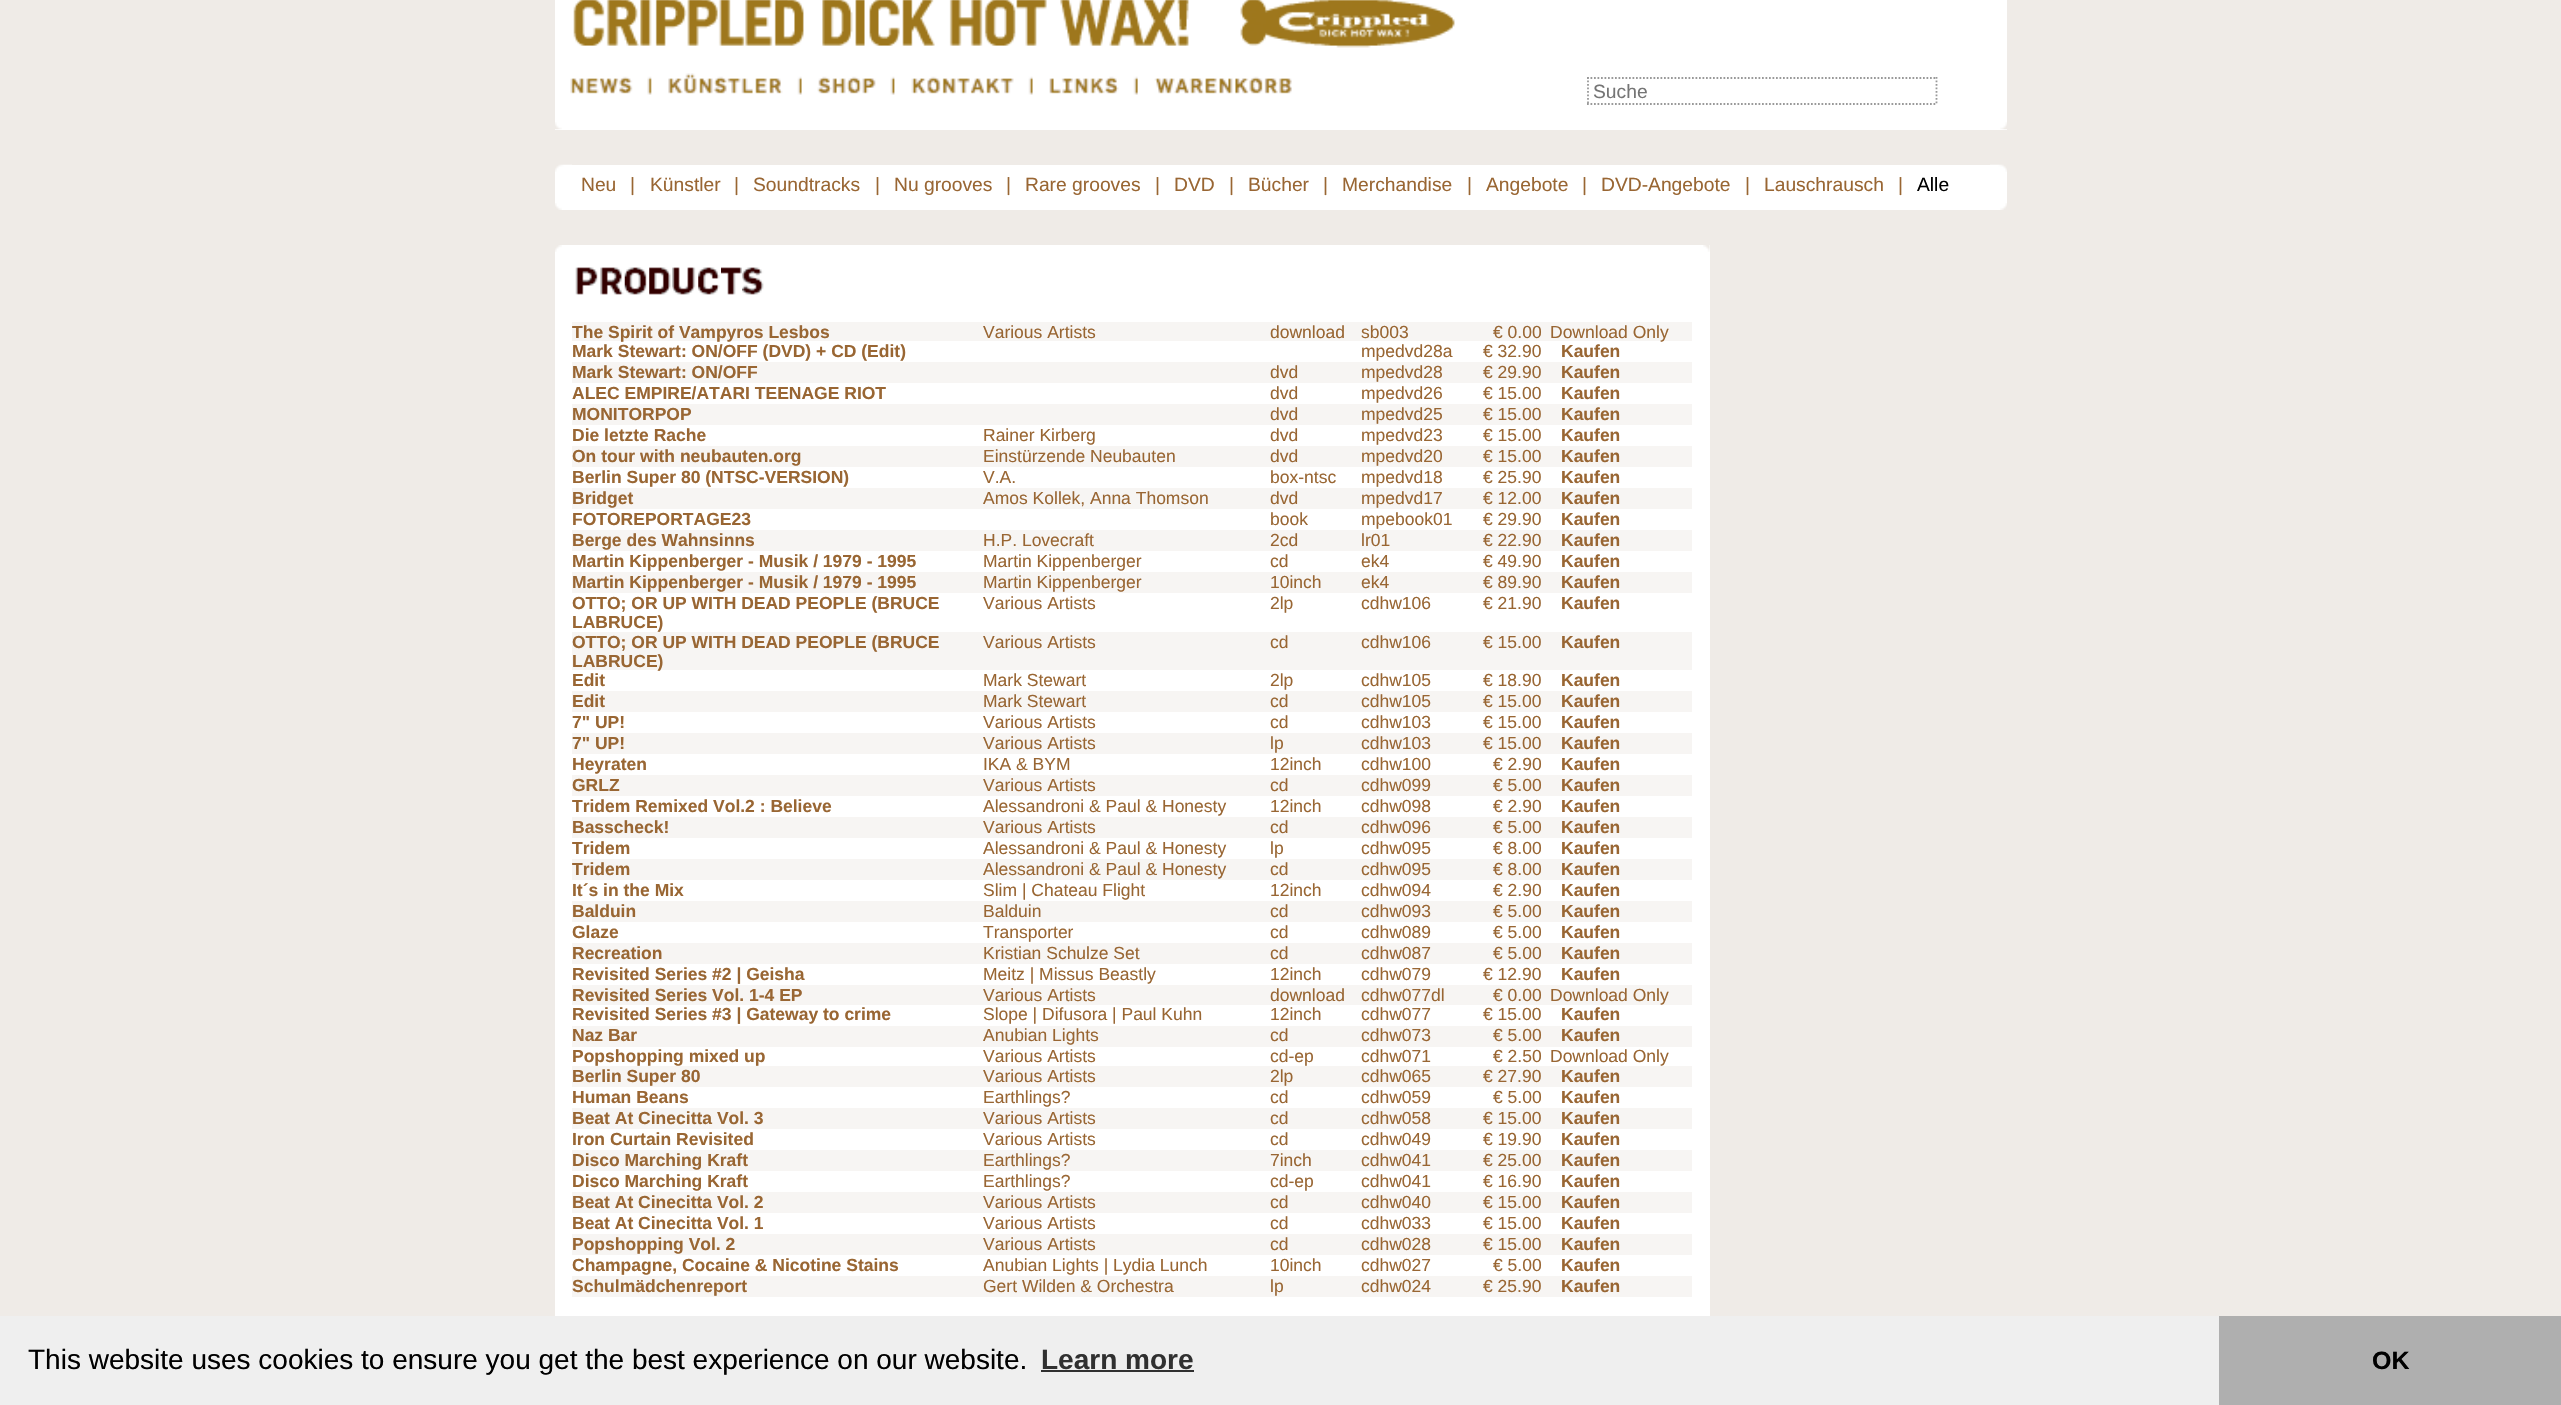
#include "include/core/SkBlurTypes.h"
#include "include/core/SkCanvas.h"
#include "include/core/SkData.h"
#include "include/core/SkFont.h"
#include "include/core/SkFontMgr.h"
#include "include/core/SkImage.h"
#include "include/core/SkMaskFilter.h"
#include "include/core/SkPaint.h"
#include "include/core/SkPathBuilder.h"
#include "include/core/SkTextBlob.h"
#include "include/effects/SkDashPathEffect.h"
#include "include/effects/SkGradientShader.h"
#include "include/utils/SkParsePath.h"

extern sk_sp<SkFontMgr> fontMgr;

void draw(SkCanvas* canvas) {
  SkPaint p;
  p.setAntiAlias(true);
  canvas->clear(SkColorSetRGB(239, 235, 231));
  p.setColor(SK_ColorWHITE);
  canvas->drawRect(SkRect::MakeLTRB(555, 0, 2007, 130), p);
  canvas->drawImageRect(SkImages::DeferredFromEncodedData(SkData::MakeFromFileName("images/1.png")), SkRect::MakeLTRB(573, 0, 1455, 48), SkSamplingOptions());
  canvas->drawImageRect(SkImages::DeferredFromEncodedData(SkData::MakeFromFileName("images/2.png")), SkRect::MakeLTRB(570, 76, 633, 94), SkSamplingOptions());
  canvas->drawImageRect(SkImages::DeferredFromEncodedData(SkData::MakeFromFileName("images/3.png")), SkRect::MakeLTRB(647, 76, 652, 95), SkSamplingOptions());
  canvas->drawImageRect(SkImages::DeferredFromEncodedData(SkData::MakeFromFileName("images/4.png")), SkRect::MakeLTRB(668, 73, 783, 94), SkSamplingOptions());
  canvas->drawImageRect(SkImages::DeferredFromEncodedData(SkData::MakeFromFileName("images/5.png")), SkRect::MakeLTRB(797, 76, 802, 95), SkSamplingOptions());
  canvas->drawImageRect(SkImages::DeferredFromEncodedData(SkData::MakeFromFileName("images/6.png")), SkRect::MakeLTRB(817, 76, 876, 94), SkSamplingOptions());
  canvas->drawImageRect(SkImages::DeferredFromEncodedData(SkData::MakeFromFileName("images/7.png")), SkRect::MakeLTRB(890, 76, 895, 95), SkSamplingOptions());
  canvas->drawImageRect(SkImages::DeferredFromEncodedData(SkData::MakeFromFileName("images/8.png")), SkRect::MakeLTRB(911, 76, 1014, 94), SkSamplingOptions());
  canvas->drawImageRect(SkImages::DeferredFromEncodedData(SkData::MakeFromFileName("images/5.png")), SkRect::MakeLTRB(1028, 76, 1033, 95), SkSamplingOptions());
  canvas->drawImageRect(SkImages::DeferredFromEncodedData(SkData::MakeFromFileName("images/9.png")), SkRect::MakeLTRB(1049, 76, 1119, 94), SkSamplingOptions());
  canvas->drawImageRect(SkImages::DeferredFromEncodedData(SkData::MakeFromFileName("images/10.png")), SkRect::MakeLTRB(1133, 76, 1138, 95), SkSamplingOptions());
  canvas->drawImageRect(SkImages::DeferredFromEncodedData(SkData::MakeFromFileName("images/11.png")), SkRect::MakeLTRB(1154, 76, 1292, 94), SkSamplingOptions());
  p.setStyle(SkPaint::kStroke_Style);
  p.setStrokeWidth(1.8f);
  p.setColor(SkColorSetRGB(153, 153, 153));
  p.setPathEffect(SkDashPathEffect::Make({{1.75f, 1.75f}}, 0));
  canvas->drawPath(SkPathBuilder().moveTo(1587, 78).lineTo(1937, 78).detach(), p);
  p.setPathEffect(nullptr);
  p.setPathEffect(SkDashPathEffect::Make({{1.75f, 1.75f}}, 0));
  canvas->drawPath(SkPathBuilder().moveTo(1936.5f, 77).lineTo(1936.5f, 105).detach(), p);
  p.setPathEffect(nullptr);
  p.setPathEffect(SkDashPathEffect::Make({{1.75f, 1.75f}}, 0));
  canvas->drawPath(SkPathBuilder().moveTo(1587, 104).lineTo(1937, 104).detach(), p);
  p.setPathEffect(nullptr);
  p.setPathEffect(SkDashPathEffect::Make({{1.75f, 1.75f}}, 0));
  canvas->drawPath(SkPathBuilder().moveTo(1588, 77).lineTo(1588, 105).detach(), p);
  p.setPathEffect(nullptr);
  canvas->drawImageRect(SkImages::DeferredFromEncodedData(SkData::MakeFromFileName("images/12.png")), SkRect::MakeLTRB(555, 122, 562, 130), SkSamplingOptions());
  canvas->drawImageRect(SkImages::DeferredFromEncodedData(SkData::MakeFromFileName("images/13.png")), SkRect::MakeLTRB(2000, 122, 2007, 130), SkSamplingOptions());
  p.setStyle(SkPaint::kFill_Style);
  p.setColor(SK_ColorWHITE);
  canvas->drawRect(SkRect::MakeLTRB(555, 165, 2007, 210), p);
  canvas->drawImageRect(SkImages::DeferredFromEncodedData(SkData::MakeFromFileName("images/14.png")), SkRect::MakeLTRB(555, 164, 572, 172), SkSamplingOptions());
  canvas->drawImageRect(SkImages::DeferredFromEncodedData(SkData::MakeFromFileName("images/15.png")), SkRect::MakeLTRB(1990, 164, 2007, 172), SkSamplingOptions());
  canvas->drawImageRect(SkImages::DeferredFromEncodedData(SkData::MakeFromFileName("images/16.png")), SkRect::MakeLTRB(555, 203, 562, 210), SkSamplingOptions());
  canvas->drawImageRect(SkImages::DeferredFromEncodedData(SkData::MakeFromFileName("images/17.png")), SkRect::MakeLTRB(2000, 203, 2007, 210), SkSamplingOptions());
  canvas->drawRect(SkRect::MakeLTRB(555, 245, 1710, 1316), p);
  canvas->drawImageRect(SkImages::DeferredFromEncodedData(SkData::MakeFromFileName("images/18.png")), SkRect::MakeLTRB(555, 245, 562, 252), SkSamplingOptions());
  canvas->drawImageRect(SkImages::DeferredFromEncodedData(SkData::MakeFromFileName("images/19.png")), SkRect::MakeLTRB(1703, 245, 1710, 252), SkSamplingOptions());
  canvas->drawImageRect(SkImages::DeferredFromEncodedData(SkData::MakeFromFileName("images/20.png")), SkRect::MakeLTRB(575, 267, 598, 295), SkSamplingOptions());
  canvas->drawImageRect(SkImages::DeferredFromEncodedData(SkData::MakeFromFileName("images/21.png")), SkRect::MakeLTRB(600, 267, 624, 295), SkSamplingOptions());
  canvas->drawImageRect(SkImages::DeferredFromEncodedData(SkData::MakeFromFileName("images/22.png")), SkRect::MakeLTRB(624, 267, 647, 295), SkSamplingOptions());
  canvas->drawImageRect(SkImages::DeferredFromEncodedData(SkData::MakeFromFileName("images/23.png")), SkRect::MakeLTRB(649, 267, 671, 295), SkSamplingOptions());
  canvas->drawImageRect(SkImages::DeferredFromEncodedData(SkData::MakeFromFileName("images/24.png")), SkRect::MakeLTRB(672, 267, 696, 295), SkSamplingOptions());
  canvas->drawImageRect(SkImages::DeferredFromEncodedData(SkData::MakeFromFileName("images/25.png")), SkRect::MakeLTRB(698, 267, 720, 295), SkSamplingOptions());
  canvas->drawImageRect(SkImages::DeferredFromEncodedData(SkData::MakeFromFileName("images/26.png")), SkRect::MakeLTRB(721, 267, 742, 295), SkSamplingOptions());
  canvas->drawImageRect(SkImages::DeferredFromEncodedData(SkData::MakeFromFileName("images/27.png")), SkRect::MakeLTRB(742, 267, 764, 295), SkSamplingOptions());
  p.setColor(SkColorSetRGB(247, 245, 243));
  canvas->drawRect(SkRect::MakeLTRB(572, 322, 1692, 341), p);
  canvas->drawRect(SkRect::MakeLTRB(572, 362, 1692, 383), p);
  canvas->drawRect(SkRect::MakeLTRB(572, 404, 1692, 425), p);
  canvas->drawRect(SkRect::MakeLTRB(572, 446, 1692, 467), p);
  canvas->drawRect(SkRect::MakeLTRB(572, 488, 1692, 509), p);
  canvas->drawRect(SkRect::MakeLTRB(572, 530, 1692, 551), p);
  canvas->drawRect(SkRect::MakeLTRB(572, 572, 1692, 593), p);
  canvas->drawRect(SkRect::MakeLTRB(572, 632, 1692, 670), p);
  canvas->drawRect(SkRect::MakeLTRB(572, 691, 1692, 712), p);
  canvas->drawRect(SkRect::MakeLTRB(572, 733, 1692, 754), p);
  canvas->drawRect(SkRect::MakeLTRB(572, 775, 1692, 796), p);
  canvas->drawRect(SkRect::MakeLTRB(572, 817, 1692, 838), p);
  canvas->drawRect(SkRect::MakeLTRB(572, 859, 1692, 880), p);
  canvas->drawRect(SkRect::MakeLTRB(572, 901, 1692, 922), p);
  canvas->drawRect(SkRect::MakeLTRB(572, 943, 1692, 964), p);
  canvas->drawRect(SkRect::MakeLTRB(572, 985, 1692, 1005), p);
  canvas->drawRect(SkRect::MakeLTRB(572, 1026, 1692, 1047), p);
  canvas->drawRect(SkRect::MakeLTRB(572, 1066, 1692, 1087), p);
  canvas->drawRect(SkRect::MakeLTRB(572, 1108, 1692, 1129), p);
  canvas->drawRect(SkRect::MakeLTRB(572, 1150, 1692, 1171), p);
  canvas->drawRect(SkRect::MakeLTRB(572, 1192, 1692, 1213), p);
  canvas->drawRect(SkRect::MakeLTRB(572, 1234, 1692, 1255), p);
  canvas->drawRect(SkRect::MakeLTRB(572, 1276, 1692, 1297), p);
  p.setColor(SkColorSetRGB(239, 239, 239));
  canvas->drawRect(SkRect::MakeLTRB(0, 1316, 2219, 1405), p);
  p.setColor(SkColorSetRGB(48, 48, 48));
  canvas->drawRect(SkRect::MakeLTRB(1041, 1370, 1194, 1372), p);
  p.setColor(SkColorSetRGB(175, 175, 175));
  canvas->drawRect(SkRect::MakeLTRB(2219, 1316, 2561, 1405), p);
  SkFont font1(fontMgr->matchFamilyStyle("Liberation Sans", SkFontStyle::Normal()), 19.25f);
  font1.setSubpixel(true);
  p.setColor(SkColorSetRGB(117, 117, 117));
  canvas->drawString("Suche", 1593, 98, font1, p);
  p.setColor(SkColorSetRGB(153, 102, 51));
  canvas->drawString("Neu", 581, 191, font1, p);
  canvas->drawString("|", 630, 191, font1, p);
  canvas->drawString("Künstler", 650, 191, font1, p);
  canvas->drawString("|", 734, 191, font1, p);
  canvas->drawString("Soundtracks", 753, 191, font1, p);
  canvas->drawString("|", 875, 191, font1, p);
  canvas->drawString("Nu grooves", 894, 191, font1, p);
  canvas->drawString("|", 1006, 191, font1, p);
  canvas->drawString("Rare grooves", 1025, 191, font1, p);
  canvas->drawString("|", 1155, 191, font1, p);
  canvas->drawString("DVD", 1174, 191, font1, p);
  canvas->drawString("|", 1229, 191, font1, p);
  canvas->drawString("Bücher", 1248, 191, font1, p);
  canvas->drawString("|", 1323, 191, font1, p);
  canvas->drawString("Merchandise", 1342, 191, font1, p);
  canvas->drawString("|", 1467, 191, font1, p);
  canvas->drawString("Angebote", 1486, 191, font1, p);
  canvas->drawString("|", 1582, 191, font1, p);
  canvas->drawString("DVD-Angebote", 1601, 191, font1, p);
  canvas->drawString("|", 1745, 191, font1, p);
  canvas->drawString("Lauschrausch", 1764, 191, font1, p);
  canvas->drawString("|", 1898, 191, font1, p);
  p.setColor(SK_ColorBLACK);
  canvas->drawString("Alle", 1917, 191, font1, p);
  SkFont font2(fontMgr->matchFamilyStyle("Liberation Sans", SkFontStyle::Bold()), 17.5f);
  font2.setSubpixel(true);
  p.setColor(SkColorSetRGB(153, 102, 51));
  canvas->drawString("The Spirit of Vampyros Lesbos", 572, 338, font2, p);
  SkFont font3(fontMgr->matchFamilyStyle("Liberation Sans", SkFontStyle::Normal()), 17.5f);
  font3.setSubpixel(true);
  canvas->drawString("Various Artists", 983, 338, font3, p);
  canvas->drawString("download", 1270, 338, font3, p);
  canvas->drawString("sb003", 1361, 338, font3, p);
  canvas->drawString("€ 0.00", 1493, 338, font3, p);
  canvas->drawString("Download Only", 1550, 338, font3, p);
  canvas->drawString("Mark Stewart: ON/OFF (DVD) + CD (Edit)", 572, 357, font2, p);
  canvas->drawString("mpedvd28a", 1361, 357, font3, p);
  canvas->drawString("€ 32.90", 1483, 357, font3, p);
  canvas->drawString("Kaufen", 1561, 357, font2, p);
  canvas->drawString("Mark Stewart: ON/OFF", 572, 378, font2, p);
  canvas->drawString("dvd", 1270, 378, font3, p);
  canvas->drawString("mpedvd28", 1361, 378, font3, p);
  canvas->drawString("€ 29.90", 1483, 378, font3, p);
  canvas->drawString("Kaufen", 1561, 378, font2, p);
  canvas->drawString("ALEC EMPIRE/ATARI TEENAGE RIOT", 572, 399, font2, p);
  canvas->drawString("dvd", 1270, 399, font3, p);
  canvas->drawString("mpedvd26", 1361, 399, font3, p);
  canvas->drawString("€ 15.00", 1483, 399, font3, p);
  canvas->drawString("Kaufen", 1561, 399, font2, p);
  canvas->drawString("MONITORPOP", 572, 420, font2, p);
  canvas->drawString("dvd", 1270, 420, font3, p);
  canvas->drawString("mpedvd25", 1361, 420, font3, p);
  canvas->drawString("€ 15.00", 1483, 420, font3, p);
  canvas->drawString("Kaufen", 1561, 420, font2, p);
  canvas->drawString("Die letzte Rache", 572, 441, font2, p);
  canvas->drawString("Rainer Kirberg", 983, 441, font3, p);
  canvas->drawString("dvd", 1270, 441, font3, p);
  canvas->drawString("mpedvd23", 1361, 441, font3, p);
  canvas->drawString("€ 15.00", 1483, 441, font3, p);
  canvas->drawString("Kaufen", 1561, 441, font2, p);
  canvas->drawString("On tour with neubauten.org", 572, 462, font2, p);
  canvas->drawString("Einstürzende Neubauten", 983, 462, font3, p);
  canvas->drawString("dvd", 1270, 462, font3, p);
  canvas->drawString("mpedvd20", 1361, 462, font3, p);
  canvas->drawString("€ 15.00", 1483, 462, font3, p);
  canvas->drawString("Kaufen", 1561, 462, font2, p);
  canvas->drawString("Berlin Super 80 (NTSC-VERSION)", 572, 483, font2, p);
  canvas->drawString("V.A.", 983, 483, font3, p);
  canvas->drawString("box-ntsc", 1270, 483, font3, p);
  canvas->drawString("mpedvd18", 1361, 483, font3, p);
  canvas->drawString("€ 25.90", 1483, 483, font3, p);
  canvas->drawString("Kaufen", 1561, 483, font2, p);
  canvas->drawString("Bridget", 572, 504, font2, p);
  canvas->drawString("Amos Kollek, Anna Thomson", 983, 504, font3, p);
  canvas->drawString("dvd", 1270, 504, font3, p);
  canvas->drawString("mpedvd17", 1361, 504, font3, p);
  canvas->drawString("€ 12.00", 1483, 504, font3, p);
  canvas->drawString("Kaufen", 1561, 504, font2, p);
  canvas->drawString("FOTOREPORTAGE23", 572, 525, font2, p);
  canvas->drawString("book", 1270, 525, font3, p);
  canvas->drawString("mpebook01", 1361, 525, font3, p);
  canvas->drawString("€ 29.90", 1483, 525, font3, p);
  canvas->drawString("Kaufen", 1561, 525, font2, p);
  canvas->drawString("Berge des Wahnsinns", 572, 546, font2, p);
  canvas->drawString("H.P. Lovecraft", 983, 546, font3, p);
  canvas->drawString("2cd", 1270, 546, font3, p);
  canvas->drawString("lr01", 1361, 546, font3, p);
  canvas->drawString("€ 22.90", 1483, 546, font3, p);
  canvas->drawString("Kaufen", 1561, 546, font2, p);
  canvas->drawString("Martin Kippenberger - Musik / 1979 - 1995", 572, 567, font2, p);
  canvas->drawString("Martin Kippenberger", 983, 567, font3, p);
  canvas->drawString("cd", 1270, 567, font3, p);
  canvas->drawString("ek4", 1361, 567, font3, p);
  canvas->drawString("€ 49.90", 1483, 567, font3, p);
  canvas->drawString("Kaufen", 1561, 567, font2, p);
  canvas->drawString("Martin Kippenberger - Musik / 1979 - 1995", 572, 588, font2, p);
  canvas->drawString("Martin Kippenberger", 983, 588, font3, p);
  canvas->drawString("10inch", 1270, 588, font3, p);
  canvas->drawString("ek4", 1361, 588, font3, p);
  canvas->drawString("€ 89.90", 1483, 588, font3, p);
  canvas->drawString("Kaufen", 1561, 588, font2, p);
  canvas->drawString("OTTO; OR UP WITH DEAD PEOPLE (BRUCE", 572, 609, font2, p);
  canvas->drawString("LABRUCE)", 572, 628, font2, p);
  canvas->drawString("Various Artists", 983, 609, font3, p);
  canvas->drawString("2lp", 1270, 609, font3, p);
  canvas->drawString("cdhw106", 1361, 609, font3, p);
  canvas->drawString("€ 21.90", 1483, 609, font3, p);
  canvas->drawString("Kaufen", 1561, 609, font2, p);
  canvas->drawString("OTTO; OR UP WITH DEAD PEOPLE (BRUCE", 572, 648, font2, p);
  canvas->drawString("LABRUCE)", 572, 667, font2, p);
  canvas->drawString("Various Artists", 983, 648, font3, p);
  canvas->drawString("cd", 1270, 648, font3, p);
  canvas->drawString("cdhw106", 1361, 648, font3, p);
  canvas->drawString("€ 15.00", 1483, 648, font3, p);
  canvas->drawString("Kaufen", 1561, 648, font2, p);
  canvas->drawString("Edit", 572, 686, font2, p);
  canvas->drawString("Mark Stewart", 983, 686, font3, p);
  canvas->drawString("2lp", 1270, 686, font3, p);
  canvas->drawString("cdhw105", 1361, 686, font3, p);
  canvas->drawString("€ 18.90", 1483, 686, font3, p);
  canvas->drawString("Kaufen", 1561, 686, font2, p);
  canvas->drawString("Edit", 572, 707, font2, p);
  canvas->drawString("Mark Stewart", 983, 707, font3, p);
  canvas->drawString("cd", 1270, 707, font3, p);
  canvas->drawString("cdhw105", 1361, 707, font3, p);
  canvas->drawString("€ 15.00", 1483, 707, font3, p);
  canvas->drawString("Kaufen", 1561, 707, font2, p);
  canvas->drawString("7\" UP!", 572, 728, font2, p);
  canvas->drawString("Various Artists", 983, 728, font3, p);
  canvas->drawString("cd", 1270, 728, font3, p);
  canvas->drawString("cdhw103", 1361, 728, font3, p);
  canvas->drawString("€ 15.00", 1483, 728, font3, p);
  canvas->drawString("Kaufen", 1561, 728, font2, p);
  canvas->drawString("7\" UP!", 572, 749, font2, p);
  canvas->drawString("Various Artists", 983, 749, font3, p);
  canvas->drawString("lp", 1270, 749, font3, p);
  canvas->drawString("cdhw103", 1361, 749, font3, p);
  canvas->drawString("€ 15.00", 1483, 749, font3, p);
  canvas->drawString("Kaufen", 1561, 749, font2, p);
  canvas->drawString("Heyraten", 572, 770, font2, p);
  canvas->drawString("IKA & BYM", 983, 770, font3, p);
  canvas->drawString("12inch", 1270, 770, font3, p);
  canvas->drawString("cdhw100", 1361, 770, font3, p);
  canvas->drawString("€ 2.90", 1493, 770, font3, p);
  canvas->drawString("Kaufen", 1561, 770, font2, p);
  canvas->drawString("GRLZ", 572, 791, font2, p);
  canvas->drawString("Various Artists", 983, 791, font3, p);
  canvas->drawString("cd", 1270, 791, font3, p);
  canvas->drawString("cdhw099", 1361, 791, font3, p);
  canvas->drawString("€ 5.00", 1493, 791, font3, p);
  canvas->drawString("Kaufen", 1561, 791, font2, p);
  canvas->drawString("Tridem Remixed Vol.2 : Believe", 572, 812, font2, p);
  canvas->drawString("Alessandroni & Paul & Honesty", 983, 812, font3, p);
  canvas->drawString("12inch", 1270, 812, font3, p);
  canvas->drawString("cdhw098", 1361, 812, font3, p);
  canvas->drawString("€ 2.90", 1493, 812, font3, p);
  canvas->drawString("Kaufen", 1561, 812, font2, p);
  canvas->drawString("Basscheck!", 572, 833, font2, p);
  canvas->drawString("Various Artists", 983, 833, font3, p);
  canvas->drawString("cd", 1270, 833, font3, p);
  canvas->drawString("cdhw096", 1361, 833, font3, p);
  canvas->drawString("€ 5.00", 1493, 833, font3, p);
  canvas->drawString("Kaufen", 1561, 833, font2, p);
  canvas->drawString("Tridem", 572, 854, font2, p);
  canvas->drawString("Alessandroni & Paul & Honesty", 983, 854, font3, p);
  canvas->drawString("lp", 1270, 854, font3, p);
  canvas->drawString("cdhw095", 1361, 854, font3, p);
  canvas->drawString("€ 8.00", 1493, 854, font3, p);
  canvas->drawString("Kaufen", 1561, 854, font2, p);
  canvas->drawString("Tridem", 572, 875, font2, p);
  canvas->drawString("Alessandroni & Paul & Honesty", 983, 875, font3, p);
  canvas->drawString("cd", 1270, 875, font3, p);
  canvas->drawString("cdhw095", 1361, 875, font3, p);
  canvas->drawString("€ 8.00", 1493, 875, font3, p);
  canvas->drawString("Kaufen", 1561, 875, font2, p);
  canvas->drawString("It´s in the Mix", 572, 896, font2, p);
  canvas->drawString("Slim | Chateau Flight", 983, 896, font3, p);
  canvas->drawString("12inch", 1270, 896, font3, p);
  canvas->drawString("cdhw094", 1361, 896, font3, p);
  canvas->drawString("€ 2.90", 1493, 896, font3, p);
  canvas->drawString("Kaufen", 1561, 896, font2, p);
  canvas->drawString("Balduin", 572, 917, font2, p);
  canvas->drawString("Balduin", 983, 917, font3, p);
  canvas->drawString("cd", 1270, 917, font3, p);
  canvas->drawString("cdhw093", 1361, 917, font3, p);
  canvas->drawString("€ 5.00", 1493, 917, font3, p);
  canvas->drawString("Kaufen", 1561, 917, font2, p);
  canvas->drawString("Glaze", 572, 938, font2, p);
  canvas->drawString("Transporter", 983, 938, font3, p);
  canvas->drawString("cd", 1270, 938, font3, p);
  canvas->drawString("cdhw089", 1361, 938, font3, p);
  canvas->drawString("€ 5.00", 1493, 938, font3, p);
  canvas->drawString("Kaufen", 1561, 938, font2, p);
  canvas->drawString("Recreation", 572, 959, font2, p);
  canvas->drawString("Kristian Schulze Set", 983, 959, font3, p);
  canvas->drawString("cd", 1270, 959, font3, p);
  canvas->drawString("cdhw087", 1361, 959, font3, p);
  canvas->drawString("€ 5.00", 1493, 959, font3, p);
  canvas->drawString("Kaufen", 1561, 959, font2, p);
  canvas->drawString("Revisited Series #2 | Geisha", 572, 980, font2, p);
  canvas->drawString("Meitz | Missus Beastly", 983, 980, font3, p);
  canvas->drawString("12inch", 1270, 980, font3, p);
  canvas->drawString("cdhw079", 1361, 980, font3, p);
  canvas->drawString("€ 12.90", 1483, 980, font3, p);
  canvas->drawString("Kaufen", 1561, 980, font2, p);
  canvas->drawString("Revisited Series Vol. 1-4 EP", 572, 1001, font2, p);
  canvas->drawString("Various Artists", 983, 1001, font3, p);
  canvas->drawString("download", 1270, 1001, font3, p);
  canvas->drawString("cdhw077dl", 1361, 1001, font3, p);
  canvas->drawString("€ 0.00", 1493, 1001, font3, p);
  canvas->drawString("Download Only", 1550, 1001, font3, p);
  canvas->drawString("Revisited Series #3 | Gateway to crime", 572, 1020, font2, p);
  canvas->drawString("Slope | Difusora | Paul Kuhn", 983, 1020, font3, p);
  canvas->drawString("12inch", 1270, 1020, font3, p);
  canvas->drawString("cdhw077", 1361, 1020, font3, p);
  canvas->drawString("€ 15.00", 1483, 1020, font3, p);
  canvas->drawString("Kaufen", 1561, 1020, font2, p);
  canvas->drawString("Naz Bar", 572, 1041, font2, p);
  canvas->drawString("Anubian Lights", 983, 1041, font3, p);
  canvas->drawString("cd", 1270, 1041, font3, p);
  canvas->drawString("cdhw073", 1361, 1041, font3, p);
  canvas->drawString("€ 5.00", 1493, 1041, font3, p);
  canvas->drawString("Kaufen", 1561, 1041, font2, p);
  canvas->drawString("Popshopping mixed up", 572, 1062, font2, p);
  canvas->drawString("Various Artists", 983, 1062, font3, p);
  canvas->drawString("cd-ep", 1270, 1062, font3, p);
  canvas->drawString("cdhw071", 1361, 1062, font3, p);
  canvas->drawString("€ 2.50", 1493, 1062, font3, p);
  canvas->drawString("Download Only", 1550, 1062, font3, p);
  canvas->drawString("Berlin Super 80", 572, 1082, font2, p);
  canvas->drawString("Various Artists", 983, 1082, font3, p);
  canvas->drawString("2lp", 1270, 1082, font3, p);
  canvas->drawString("cdhw065", 1361, 1082, font3, p);
  canvas->drawString("€ 27.90", 1483, 1082, font3, p);
  canvas->drawString("Kaufen", 1561, 1082, font2, p);
  canvas->drawString("Human Beans", 572, 1103, font2, p);
  canvas->drawString("Earthlings?", 983, 1103, font3, p);
  canvas->drawString("cd", 1270, 1103, font3, p);
  canvas->drawString("cdhw059", 1361, 1103, font3, p);
  canvas->drawString("€ 5.00", 1493, 1103, font3, p);
  canvas->drawString("Kaufen", 1561, 1103, font2, p);
  canvas->drawString("Beat At Cinecitta Vol. 3", 572, 1124, font2, p);
  canvas->drawString("Various Artists", 983, 1124, font3, p);
  canvas->drawString("cd", 1270, 1124, font3, p);
  canvas->drawString("cdhw058", 1361, 1124, font3, p);
  canvas->drawString("€ 15.00", 1483, 1124, font3, p);
  canvas->drawString("Kaufen", 1561, 1124, font2, p);
  canvas->drawString("Iron Curtain Revisited", 572, 1145, font2, p);
  canvas->drawString("Various Artists", 983, 1145, font3, p);
  canvas->drawString("cd", 1270, 1145, font3, p);
  canvas->drawString("cdhw049", 1361, 1145, font3, p);
  canvas->drawString("€ 19.90", 1483, 1145, font3, p);
  canvas->drawString("Kaufen", 1561, 1145, font2, p);
  canvas->drawString("Disco Marching Kraft", 572, 1166, font2, p);
  canvas->drawString("Earthlings?", 983, 1166, font3, p);
  canvas->drawString("7inch", 1270, 1166, font3, p);
  canvas->drawString("cdhw041", 1361, 1166, font3, p);
  canvas->drawString("€ 25.00", 1483, 1166, font3, p);
  canvas->drawString("Kaufen", 1561, 1166, font2, p);
  canvas->drawString("Disco Marching Kraft", 572, 1187, font2, p);
  canvas->drawString("Earthlings?", 983, 1187, font3, p);
  canvas->drawString("cd-ep", 1270, 1187, font3, p);
  canvas->drawString("cdhw041", 1361, 1187, font3, p);
  canvas->drawString("€ 16.90", 1483, 1187, font3, p);
  canvas->drawString("Kaufen", 1561, 1187, font2, p);
  canvas->drawString("Beat At Cinecitta Vol. 2", 572, 1208, font2, p);
  canvas->drawString("Various Artists", 983, 1208, font3, p);
  canvas->drawString("cd", 1270, 1208, font3, p);
  canvas->drawString("cdhw040", 1361, 1208, font3, p);
  canvas->drawString("€ 15.00", 1483, 1208, font3, p);
  canvas->drawString("Kaufen", 1561, 1208, font2, p);
  canvas->drawString("Beat At Cinecitta Vol. 1", 572, 1229, font2, p);
  canvas->drawString("Various Artists", 983, 1229, font3, p);
  canvas->drawString("cd", 1270, 1229, font3, p);
  canvas->drawString("cdhw033", 1361, 1229, font3, p);
  canvas->drawString("€ 15.00", 1483, 1229, font3, p);
  canvas->drawString("Kaufen", 1561, 1229, font2, p);
  canvas->drawString("Popshopping Vol. 2", 572, 1250, font2, p);
  canvas->drawString("Various Artists", 983, 1250, font3, p);
  canvas->drawString("cd", 1270, 1250, font3, p);
  canvas->drawString("cdhw028", 1361, 1250, font3, p);
  canvas->drawString("€ 15.00", 1483, 1250, font3, p);
  canvas->drawString("Kaufen", 1561, 1250, font2, p);
  canvas->drawString("Champagne, Cocaine & Nicotine Stains", 572, 1271, font2, p);
  canvas->drawString("Anubian Lights | Lydia Lunch", 983, 1271, font3, p);
  canvas->drawString("10inch", 1270, 1271, font3, p);
  canvas->drawString("cdhw027", 1361, 1271, font3, p);
  canvas->drawString("€ 5.00", 1493, 1271, font3, p);
  canvas->drawString("Kaufen", 1561, 1271, font2, p);
  canvas->drawString("Schulmädchenreport", 572, 1292, font2, p);
  canvas->drawString("Gert Wilden & Orchestra", 983, 1292, font3, p);
  canvas->drawString("lp", 1270, 1292, font3, p);
  canvas->drawString("cdhw024", 1361, 1292, font3, p);
  canvas->drawString("€ 25.90", 1483, 1292, font3, p);
  canvas->drawString("Kaufen", 1561, 1292, font2, p);
  SkFont font4(fontMgr->matchFamilyStyle("Liberation Sans", SkFontStyle::Normal()), 28);
  font4.setSubpixel(true);
  p.setColor(SK_ColorBLACK);
  canvas->drawString("This website uses cookies to ensure you get the best experience on our website.", 28, 1369, font4, p);
  SkFont font5(fontMgr->matchFamilyStyle("Liberation Sans", SkFontStyle::Bold()), 28);
  font5.setSubpixel(true);
  p.setColor(SkColorSetRGB(48, 48, 48));
  canvas->drawString("Learn more", 1041, 1369, font5, p);
  SkFont font6(fontMgr->matchFamilyStyle("Liberation Sans", SkFontStyle::Bold()), 25);
  font6.setSubpixel(true);
  p.setColor(SK_ColorBLACK);
  canvas->drawString("OK", 2372, 1369, font6, p);
}
